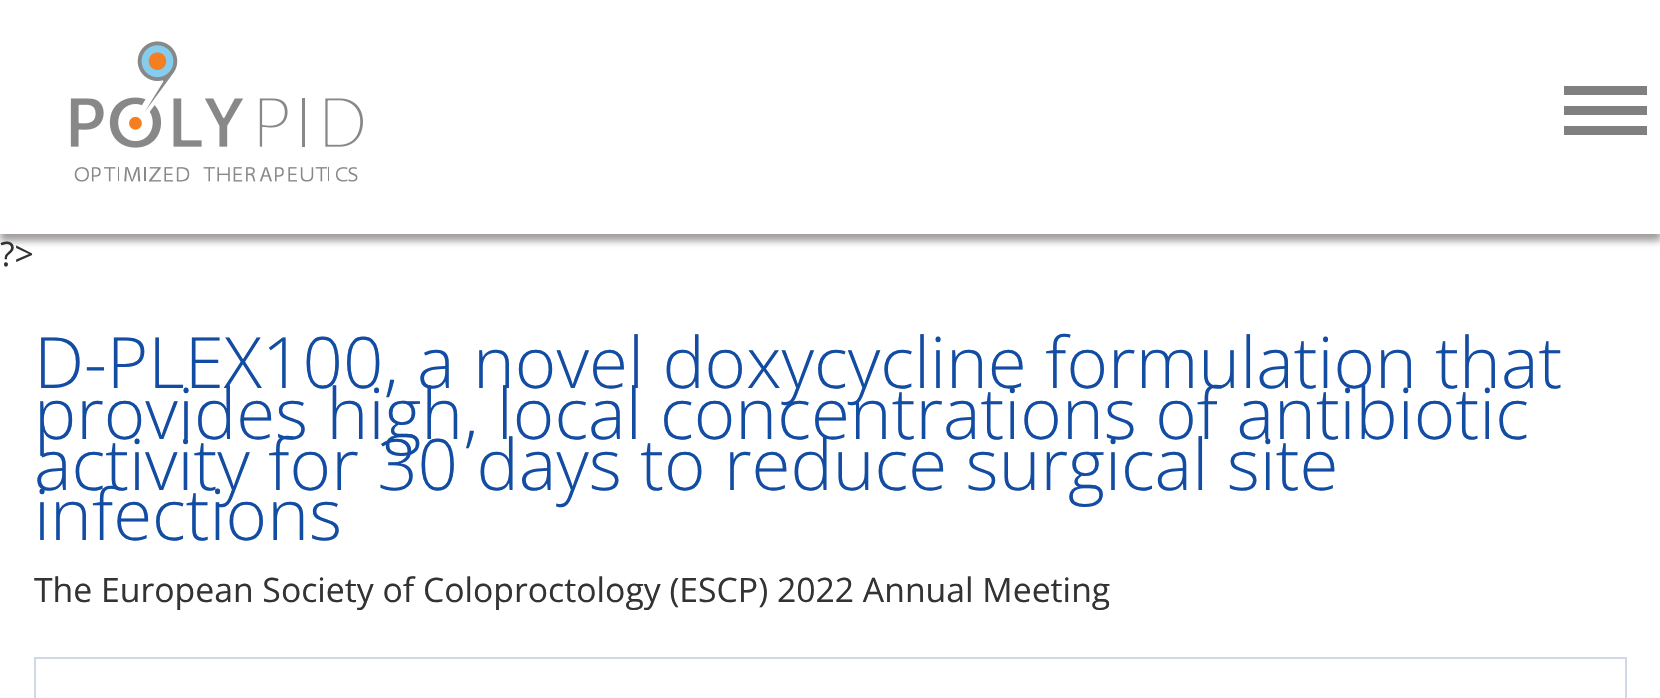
#include "include/core/SkBlurTypes.h"
#include "include/core/SkCanvas.h"
#include "include/core/SkData.h"
#include "include/core/SkFont.h"
#include "include/core/SkFontMgr.h"
#include "include/core/SkImage.h"
#include "include/core/SkMaskFilter.h"
#include "include/core/SkPaint.h"
#include "include/core/SkPathBuilder.h"
#include "include/core/SkTextBlob.h"
#include "include/effects/SkDashPathEffect.h"
#include "include/effects/SkGradientShader.h"
#include "include/utils/SkParsePath.h"

extern sk_sp<SkFontMgr> fontMgr;

void draw(SkCanvas* canvas) {
  SkPaint p;
  p.setAntiAlias(true);
  canvas->clear(SK_ColorWHITE);
  p.setColor(SkColorSetARGB(153, 97, 90, 90));
  p.setMaskFilter(SkMaskFilter::MakeBlur(kNormal_SkBlurStyle, 3.5f));
  canvas->drawRect(SkRect::MakeLTRB(0, 7, 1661, 241), p);
  p.setMaskFilter(nullptr);
  p.setColor(SK_ColorWHITE);
  canvas->drawRect(SkRect::MakeLTRB(0, 0, 1660, 234), p);
  canvas->drawImageRect(SkImages::DeferredFromEncodedData(SkData::MakeFromFileName("images/1.png")), SkRect::MakeLTRB(70, 41, 363, 182), SkSamplingOptions());
  p.setColor(SkColorSetRGB(128, 128, 128));
  canvas->drawRect(SkRect::MakeLTRB(1564, 106, 1647, 115), p);
  canvas->drawRect(SkRect::MakeLTRB(1564, 86, 1647, 95), p);
  canvas->drawRect(SkRect::MakeLTRB(1564, 126, 1647, 135), p);
  p.setStyle(SkPaint::kStroke_Style);
  p.setStrokeWidth(2);
  p.setColor(SkColorSetRGB(207, 216, 231));
  canvas->drawRect(SkRect::MakeLTRB(35, 658, 1626, 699), p);
  SkFont font1(fontMgr->matchFamilyStyle("Open Sans", SkFontStyle::Normal()), 33.75f);
  font1.setSubpixel(true);
  p.setStyle(SkPaint::kFill_Style);
  p.setColor(SkColorSetRGB(51, 51, 51));
  canvas->drawString("?>", 0, 266, font1, p);
  SkFont font2(fontMgr->matchFamilyStyle("Open Sans", SkFontStyle(300, SkFontStyle::kNormal_Width, SkFontStyle::kUpright_Slant)), 70.9f);
  font2.setSubpixel(true);
  p.setColor(SkColorSetRGB(19, 76, 163));
  canvas->drawString("D-PLEX100, a novel doxycycline formulation that", 34, 388, font2, p);
  canvas->drawString("provides high, local concentrations of antibiotic", 34, 439, font2, p);
  canvas->drawString("activity for 30 days to reduce surgical site", 34, 490, font2, p);
  canvas->drawString("infections", 34, 540, font2, p);
  p.setColor(SkColorSetRGB(51, 51, 51));
  canvas->drawString("The European Society of Coloproctology (ESCP) 2022 Annual Meeting", 34, 602, font1, p);
}
